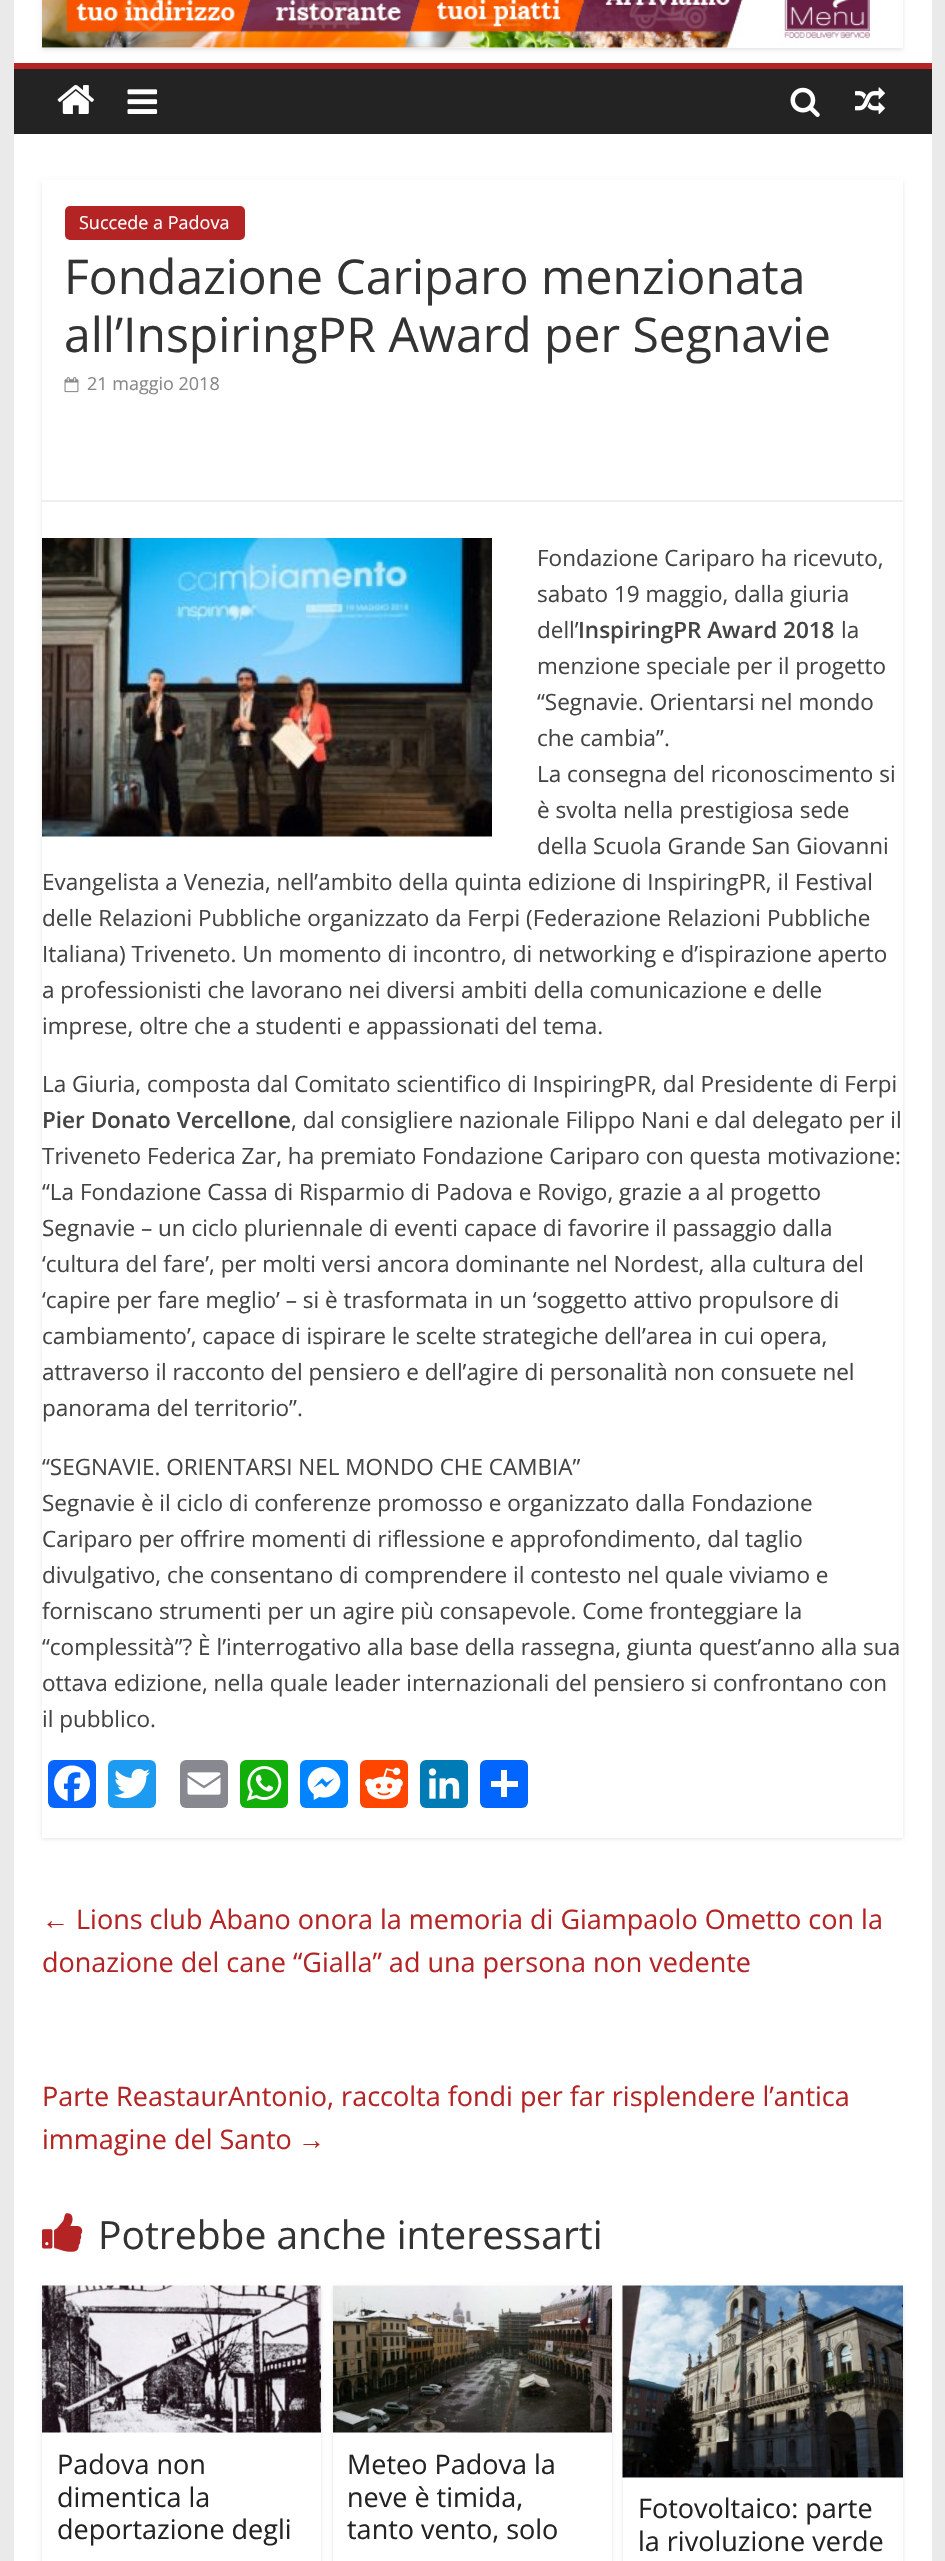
#include "include/core/SkBlurTypes.h"
#include "include/core/SkCanvas.h"
#include "include/core/SkData.h"
#include "include/core/SkFont.h"
#include "include/core/SkFontMgr.h"
#include "include/core/SkImage.h"
#include "include/core/SkMaskFilter.h"
#include "include/core/SkPaint.h"
#include "include/core/SkPathBuilder.h"
#include "include/core/SkTextBlob.h"
#include "include/effects/SkDashPathEffect.h"
#include "include/effects/SkGradientShader.h"
#include "include/utils/SkParsePath.h"

extern sk_sp<SkFontMgr> fontMgr;

void draw(SkCanvas* canvas) {
  SkPaint p;
  p.setAntiAlias(true);
  canvas->clear(SkColorSetRGB(234, 234, 234));
  p.setColor(SK_ColorWHITE);
  canvas->drawRect(SkRect::MakeLTRB(14, 0, 932, 2561), p);
  canvas->save();
  canvas->clipPath(SkPathBuilder(SkPathFillType::kEvenOdd).moveTo(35, 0).lineTo(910, 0).lineTo(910, 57).lineTo(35, 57).close().moveTo(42, -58).lineTo(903, -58).lineTo(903, 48).lineTo(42, 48).close().detach(), true);
  p.setColor(SkColorSetARGB(26, 0, 0, 0));
  p.setMaskFilter(SkMaskFilter::MakeBlur(kNormal_SkBlurStyle, 2));
  canvas->drawRect(SkRect::MakeLTRB(42, -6, 903, 50), p);
  p.setMaskFilter(nullptr);
  canvas->restore();
  canvas->drawImageRect(SkImages::DeferredFromEncodedData(SkData::MakeFromFileName("images/1.png")), SkRect::MakeLTRB(42, 0, 870, 48), SkSamplingOptions());
  p.setColor(SkColorSetRGB(35, 35, 35));
  canvas->drawRect(SkRect::MakeLTRB(14, 69, 932, 134), p);
  p.setColor(SkColorSetRGB(181, 36, 36));
  canvas->drawRect(SkRect::MakeLTRB(14, 63, 932, 69), p);
  canvas->drawImageRect(SkImages::DeferredFromEncodedData(SkData::MakeFromFileName("images/2.png")), SkRect::MakeLTRB(57, 85, 94, 114), SkSamplingOptions());
  canvas->drawImageRect(SkImages::DeferredFromEncodedData(SkData::MakeFromFileName("images/3.png")), SkRect::MakeLTRB(127, 89, 158, 114), SkSamplingOptions());
  canvas->drawImageRect(SkImages::DeferredFromEncodedData(SkData::MakeFromFileName("images/4.png")), SkRect::MakeLTRB(790, 87, 820, 117), SkSamplingOptions());
  canvas->drawImageRect(SkImages::DeferredFromEncodedData(SkData::MakeFromFileName("images/5.png")), SkRect::MakeLTRB(855, 87, 885, 114), SkSamplingOptions());
  canvas->save();
  canvas->clipPath(SkPathBuilder(SkPathFillType::kEvenOdd).moveTo(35, 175).lineTo(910, 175).lineTo(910, 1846).lineTo(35, 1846).close().moveTo(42, 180).lineTo(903, 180).lineTo(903, 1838).lineTo(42, 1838).close().detach(), true);
  p.setColor(SkColorSetARGB(26, 0, 0, 0));
  p.setMaskFilter(SkMaskFilter::MakeBlur(kNormal_SkBlurStyle, 2));
  canvas->drawRect(SkRect::MakeLTRB(42, 182, 903, 1839), p);
  p.setMaskFilter(nullptr);
  canvas->restore();
  p.setColor(SkColorSetRGB(181, 36, 36));
  canvas->drawRoundRect(SkRect::MakeLTRB(65, 206, 245, 240), 5, 5, p);
  canvas->drawImageRect(SkImages::DeferredFromEncodedData(SkData::MakeFromFileName("images/6.png")), SkRect::MakeLTRB(64, 377, 79, 393), SkSamplingOptions());
  p.setColor(SkColorSetRGB(238, 238, 238));
  canvas->drawRect(SkRect::MakeLTRB(42, 500, 903, 502), p);
  canvas->drawImageRect(SkImages::DeferredFromEncodedData(SkData::MakeFromFileName("images/7.png")), SkRect::MakeLTRB(42, 538, 492, 837), SkSamplingOptions());
  p.setColor(SkColorSetRGB(8, 102, 255));
  canvas->drawRoundRect(SkRect::MakeLTRB(48, 1760, 96, 1808), 6, 6, p);
  canvas->drawImageRect(SkImages::DeferredFromEncodedData(SkData::MakeFromFileName("images/8.png")), SkRect::MakeLTRB(54, 1765, 90, 1802), SkSamplingOptions());
  p.setColor(SkColorSetRGB(29, 155, 240));
  canvas->drawRoundRect(SkRect::MakeLTRB(108, 1760, 156, 1808), 6, 6, p);
  canvas->drawImageRect(SkImages::DeferredFromEncodedData(SkData::MakeFromFileName("images/9.png")), SkRect::MakeLTRB(114, 1768, 150, 1799), SkSamplingOptions());
  p.setColor(SkColorSetRGB(136, 137, 144));
  canvas->drawRoundRect(SkRect::MakeLTRB(180, 1760, 228, 1808), 6, 6, p);
  canvas->drawImageRect(SkImages::DeferredFromEncodedData(SkData::MakeFromFileName("images/10.png")), SkRect::MakeLTRB(187, 1772, 221, 1795), SkSamplingOptions());
  p.setColor(SkColorSetRGB(18, 175, 10));
  canvas->drawRoundRect(SkRect::MakeLTRB(240, 1760, 288, 1808), 6, 6, p);
  canvas->drawImageRect(SkImages::DeferredFromEncodedData(SkData::MakeFromFileName("images/11.png")), SkRect::MakeLTRB(246, 1766, 282, 1801), SkSamplingOptions());
  p.setColor(SkColorSetRGB(0, 132, 255));
  canvas->drawRoundRect(SkRect::MakeLTRB(300, 1760, 348, 1808), 6, 6, p);
  canvas->drawImageRect(SkImages::DeferredFromEncodedData(SkData::MakeFromFileName("images/12.png")), SkRect::MakeLTRB(307, 1767, 341, 1800), SkSamplingOptions());
  p.setColor(SkColorSetRGB(255, 69, 0));
  canvas->drawRoundRect(SkRect::MakeLTRB(360, 1760, 408, 1808), 6, 6, p);
  canvas->drawImageRect(SkImages::DeferredFromEncodedData(SkData::MakeFromFileName("images/13.png")), SkRect::MakeLTRB(365, 1767, 403, 1800), SkSamplingOptions());
  p.setColor(SkColorSetRGB(0, 123, 181));
  canvas->drawRoundRect(SkRect::MakeLTRB(420, 1760, 468, 1808), 6, 6, p);
  canvas->drawImageRect(SkImages::DeferredFromEncodedData(SkData::MakeFromFileName("images/14.png")), SkRect::MakeLTRB(428, 1768, 460, 1799), SkSamplingOptions());
  p.setColor(SkColorSetRGB(1, 102, 255));
  canvas->drawRoundRect(SkRect::MakeLTRB(480, 1760, 528, 1808), 6, 6, p);
  p.setColor(SK_ColorWHITE);
  canvas->drawRect(SkRect::MakeLTRB(501, 1770, 507, 1797), p);
  canvas->drawRect(SkRect::MakeLTRB(491, 1781, 518, 1787), p);
  canvas->drawImageRect(SkImages::DeferredFromEncodedData(SkData::MakeFromFileName("images/15.png")), SkRect::MakeLTRB(42, 2213, 83, 2252), SkSamplingOptions());
  canvas->save();
  canvas->clipPath(SkPathBuilder(SkPathFillType::kEvenOdd).moveTo(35, 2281).lineTo(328, 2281).lineTo(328, 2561).lineTo(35, 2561).close().moveTo(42, 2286).lineTo(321, 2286).lineTo(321, 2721).lineTo(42, 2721).close().detach(), true);
  p.setColor(SkColorSetARGB(26, 0, 0, 0));
  p.setMaskFilter(SkMaskFilter::MakeBlur(kNormal_SkBlurStyle, 2));
  canvas->drawRect(SkRect::MakeLTRB(42, 2288, 321, 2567), p);
  p.setMaskFilter(nullptr);
  canvas->restore();
  canvas->drawImageRect(SkImages::DeferredFromEncodedData(SkData::MakeFromFileName("images/16.png")), SkRect::MakeLTRB(42, 2285, 321, 2433), SkSamplingOptions());
  canvas->save();
  canvas->clipPath(SkPathBuilder(SkPathFillType::kEvenOdd).moveTo(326, 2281).lineTo(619, 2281).lineTo(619, 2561).lineTo(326, 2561).close().moveTo(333, 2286).lineTo(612, 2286).lineTo(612, 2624).lineTo(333, 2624).close().detach(), true);
  p.setMaskFilter(SkMaskFilter::MakeBlur(kNormal_SkBlurStyle, 2));
  canvas->drawRect(SkRect::MakeLTRB(333, 2288, 612, 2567), p);
  p.setMaskFilter(nullptr);
  canvas->restore();
  canvas->drawImageRect(SkImages::DeferredFromEncodedData(SkData::MakeFromFileName("images/17.png")), SkRect::MakeLTRB(333, 2285, 612, 2433), SkSamplingOptions());
  canvas->save();
  canvas->clipPath(SkPathBuilder(SkPathFillType::kEvenOdd).moveTo(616, 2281).lineTo(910, 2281).lineTo(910, 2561).lineTo(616, 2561).close().moveTo(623, 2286).lineTo(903, 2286).lineTo(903, 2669).lineTo(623, 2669).close().detach(), true);
  p.setMaskFilter(SkMaskFilter::MakeBlur(kNormal_SkBlurStyle, 2));
  canvas->drawRect(SkRect::MakeLTRB(623, 2288, 903, 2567), p);
  p.setMaskFilter(nullptr);
  canvas->restore();
  canvas->drawImageRect(SkImages::DeferredFromEncodedData(SkData::MakeFromFileName("images/18.png")), SkRect::MakeLTRB(622, 2285, 903, 2478), SkSamplingOptions());
  SkFont font1(fontMgr->matchFamilyStyle("Open Sans", SkFontStyle::Normal()), 18);
  font1.setSubpixel(true);
  p.setColor(SK_ColorWHITE);
  canvas->drawString("Succede a Padova", 79, 229, font1, p);
  SkFont font2(fontMgr->matchFamilyStyle("Open Sans", SkFontStyle::Normal()), 48);
  font2.setSubpixel(true);
  p.setColor(SkColorSetRGB(51, 51, 51));
  canvas->drawString("Fondazione Cariparo menzionata", 64, 294, font2, p);
  canvas->drawString("all’InspiringPR Award per Segnavie", 64, 352, font2, p);
  p.setColor(SkColorSetRGB(136, 136, 136));
  canvas->drawString("21 maggio 2018", 87, 390, font1, p);
  SkFont font3(fontMgr->matchFamilyStyle("Open Sans", SkFontStyle::Normal()), 22.5f);
  font3.setSubpixel(true);
  p.setColor(SkColorSetRGB(68, 68, 68));
  canvas->drawString("Fondazione Cariparo ha ricevuto,", 537, 566, font3, p);
  canvas->drawString("sabato 19 maggio, dalla giuria", 537, 602, font3, p);
  canvas->drawString("dell’", 537, 638, font3, p);
  SkFont font4(fontMgr->matchFamilyStyle("Open Sans", SkFontStyle(600, SkFontStyle::kNormal_Width, SkFontStyle::kUpright_Slant)), 22.5f);
  font4.setSubpixel(true);
  canvas->drawString("InspiringPR Award 2018", 578, 638, font4, p);
  canvas->drawString("la", 841, 638, font3, p);
  canvas->drawString("menzione speciale per il progetto", 537, 674, font3, p);
  canvas->drawString("“Segnavie. Orientarsi nel mondo", 537, 710, font3, p);
  canvas->drawString("che cambia”.", 537, 746, font3, p);
  canvas->drawString("La consegna del riconoscimento si", 537, 782, font3, p);
  canvas->drawString("è svolta nella prestigiosa sede", 537, 818, font3, p);
  canvas->drawString("della Scuola Grande San Giovanni", 537, 854, font3, p);
  canvas->drawString("Evangelista a Venezia, nell’ambito della quinta edizione di InspiringPR, il Festival", 42, 890, font3, p);
  canvas->drawString("delle Relazioni Pubbliche organizzato da Ferpi (Federazione Relazioni Pubbliche", 42, 926, font3, p);
  canvas->drawString("Italiana) Triveneto. Un momento di incontro, di networking e d’ispirazione aperto", 42, 962, font3, p);
  canvas->drawString("a professionisti che lavorano nei diversi ambiti della comunicazione e delle", 42, 998, font3, p);
  canvas->drawString("imprese, oltre che a studenti e appassionati del tema.", 42, 1034, font3, p);
  canvas->drawString("La Giuria, composta dal Comitato scientifico di InspiringPR, dal Presidente di Ferpi", 42, 1092, font3, p);
  canvas->drawString("Pier Donato Vercellone", 42, 1128, font4, p);
  canvas->drawString(", dal consigliere nazionale Filippo Nani e dal delegato per il", 291, 1128, font3, p);
  canvas->drawString("Triveneto Federica Zar, ha premiato Fondazione Cariparo con questa motivazione:", 42, 1164, font3, p);
  canvas->drawString("“La Fondazione Cassa di Risparmio di Padova e Rovigo, grazie a al progetto", 42, 1200, font3, p);
  canvas->drawString("Segnavie – un ciclo pluriennale di eventi capace di favorire il passaggio dalla", 42, 1236, font3, p);
  canvas->drawString("‘cultura del fare’, per molti versi ancora dominante nel Nordest, alla cultura del", 42, 1272, font3, p);
  canvas->drawString("‘capire per fare meglio’ – si è trasformata in un ‘soggetto attivo propulsore di", 42, 1308, font3, p);
  canvas->drawString("cambiamento’, capace di ispirare le scelte strategiche dell’area in cui opera,", 42, 1344, font3, p);
  canvas->drawString("attraverso il racconto del pensiero e dell’agire di personalità non consuete nel", 42, 1380, font3, p);
  canvas->drawString("panorama del territorio”.", 42, 1416, font3, p);
  canvas->drawString("“SEGNAVIE. ORIENTARSI NEL MONDO CHE CAMBIA”", 42, 1475, font3, p);
  canvas->drawString("Segnavie è il ciclo di conferenze promosso e organizzato dalla Fondazione", 42, 1511, font3, p);
  canvas->drawString("Cariparo per offrire momenti di riflessione e approfondimento, dal taglio", 42, 1547, font3, p);
  canvas->drawString("divulgativo, che consentano di comprendere il contesto nel quale viviamo e", 42, 1583, font3, p);
  canvas->drawString("forniscano strumenti per un agire più consapevole. Come fronteggiare la", 42, 1619, font3, p);
  canvas->drawString("“complessità”? È l’interrogativo alla base della rassegna, giunta quest’anno alla sua", 42, 1655, font3, p);
  canvas->drawString("ottava edizione, nella quale leader internazionali del pensiero si confrontano con", 42, 1691, font3, p);
  canvas->drawString("il pubblico.", 42, 1727, font3, p);
  SkFont font5(fontMgr->matchFamilyStyle("Liberation Serif", SkFontStyle::Normal()), 27);
  font5.setSubpixel(true);
  p.setColor(SkColorSetRGB(181, 36, 36));
  canvas->drawString("←", 42, 1929, font5, p);
  SkFont font6(fontMgr->matchFamilyStyle("Open Sans", SkFontStyle::Normal()), 27);
  font6.setSubpixel(true);
  canvas->drawString("Lions club Abano onora la memoria di Giampaolo Ometto con la", 76, 1929, font6, p);
  canvas->drawString("donazione del cane “Gialla” ad una persona non vedente", 42, 1972, font6, p);
  canvas->drawString("Parte ReastaurAntonio, raccolta fondi per far risplendere l’antica", 42, 2106, font6, p);
  canvas->drawString("immagine del Santo", 42, 2149, font6, p);
  canvas->drawString("→", 298, 2149, font5, p);
  SkFont font7(fontMgr->matchFamilyStyle("Open Sans", SkFontStyle::Normal()), 39);
  font7.setSubpixel(true);
  p.setColor(SkColorSetRGB(51, 51, 51));
  canvas->drawString("Potrebbe anche interessarti", 98, 2249, font7, p);
  p.setColor(SkColorSetRGB(35, 35, 35));
  canvas->drawString("Padova non", 57, 2474, font6, p);
  canvas->drawString("dimentica la", 57, 2507, font6, p);
  canvas->drawString("deportazione degli", 57, 2539, font6, p);
  canvas->drawString("Meteo Padova la", 347, 2474, font6, p);
  canvas->drawString("neve è timida,", 347, 2507, font6, p);
  canvas->drawString("tanto vento, solo", 347, 2539, font6, p);
  canvas->drawString("Fotovoltaico: parte", 638, 2518, font6, p);
  canvas->drawString("la rivoluzione verde", 638, 2551, font6, p);
}
